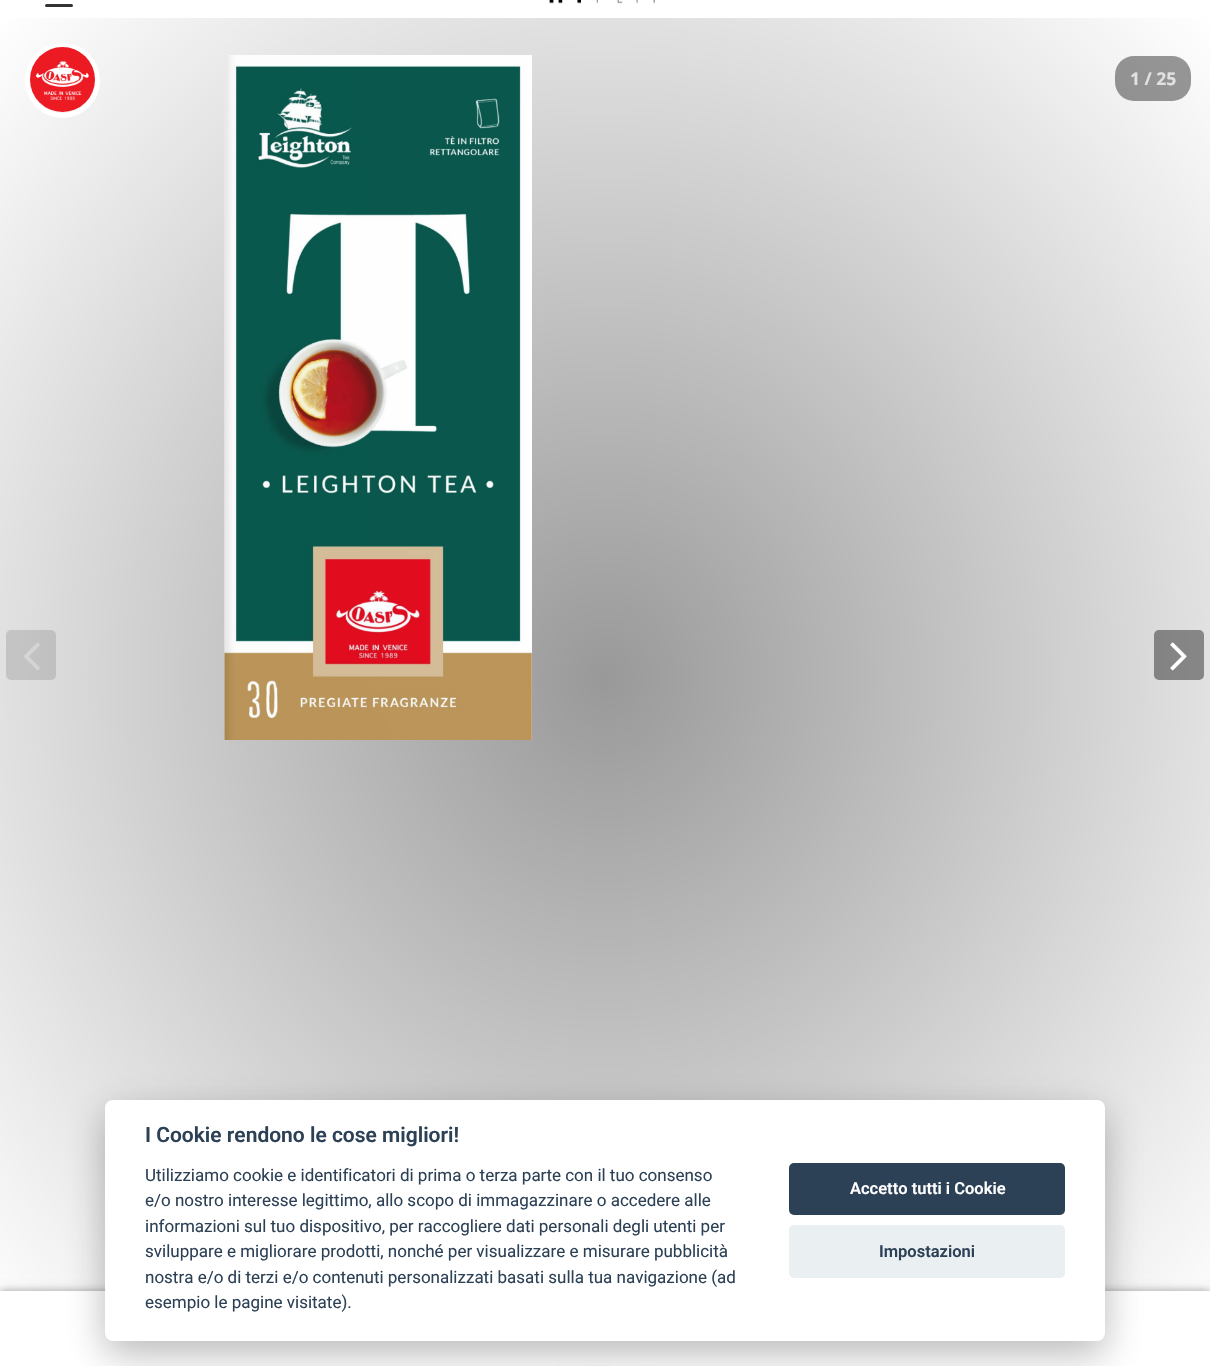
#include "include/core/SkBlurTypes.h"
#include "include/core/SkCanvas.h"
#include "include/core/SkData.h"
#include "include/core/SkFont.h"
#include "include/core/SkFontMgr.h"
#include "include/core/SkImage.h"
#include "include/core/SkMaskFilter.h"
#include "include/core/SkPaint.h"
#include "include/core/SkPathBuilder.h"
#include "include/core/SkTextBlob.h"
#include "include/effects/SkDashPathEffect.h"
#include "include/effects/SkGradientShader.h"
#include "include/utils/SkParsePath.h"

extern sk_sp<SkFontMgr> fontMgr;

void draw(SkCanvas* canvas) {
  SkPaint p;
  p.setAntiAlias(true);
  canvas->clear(SK_ColorWHITE);
  canvas->drawImageRect(SkImages::DeferredFromEncodedData(SkData::MakeFromFileName("images/1.png")), SkRect::MakeLTRB(549, 0, 655, 4), SkSamplingOptions());
  p.setColor(SkColorSetRGB(51, 51, 51));
  canvas->drawRoundRect(SkRect::MakeLTRB(45, 4, 73, 7), 1.5f, 1.5f, p);
  {
    const SkColor colors[] = {SkColorSetRGB(153, 153, 153), SK_ColorWHITE};
    const float stops[] = {0, 1};
    SkMatrix m = SkMatrix::Translate(605, 678).preScale(856, 934);
    p.setShader(SkGradientShader::MakeRadial({0, 0}, 1, colors, stops, 2, SkTileMode::kClamp, 0, &m));
    p.setAlpha(255);
  }
  canvas->drawRect(SkRect::MakeLTRB(0, 18, 1210, 1291), p);
  p.setStyle(SkPaint::kStroke_Style);
  p.setStrokeWidth(5);
  p.setShader(nullptr);
  p.setColor(SK_ColorWHITE);
  canvas->drawCircle(62.5f, 80.5f, 35, p);
  canvas->drawImageRect(SkImages::DeferredFromEncodedData(SkData::MakeFromFileName("images/2.png")), SkRect::MakeLTRB(30, 47, 95, 112), SkSamplingOptions());
  p.setStyle(SkPaint::kFill_Style);
  p.setColor(SkColorSetARGB(31, 0, 0, 0));
  canvas->drawRoundRect(SkRect::MakeLTRB(6, 630, 56, 680), 5, 5, p);
  canvas->drawImageRect(SkImages::DeferredFromEncodedData(SkData::MakeFromFileName("images/3.png")), SkRect::MakeLTRB(24, 642, 40, 671), SkSamplingOptions());
  canvas->drawImageRect(SkImages::DeferredFromEncodedData(SkData::MakeFromFileName("images/4.png")), SkRect::MakeLTRB(224, 55, 532, 740), SkSamplingOptions());
  p.setColor(SkColorSetARGB(102, 0, 0, 0));
  canvas->drawRoundRect(SkRect::MakeLTRB(1154, 630, 1204, 680), 5, 5, p);
  canvas->drawImageRect(SkImages::DeferredFromEncodedData(SkData::MakeFromFileName("images/5.png")), SkRect::MakeLTRB(1170, 642, 1187, 671), SkSamplingOptions());
  canvas->drawRoundRect(SkRect::MakeLTRB(1115, 56, 1191, 101), 19, 19, p);
  canvas->save();
  canvas->clipRect(SkRect::MakeLTRB(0, 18, 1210, 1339));
  canvas->clipPath(SkPathBuilder(SkPathFillType::kEvenOdd).moveTo(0, 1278).lineTo(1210, 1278).lineTo(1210, 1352).lineTo(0, 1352).close().moveTo(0, 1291).lineTo(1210, 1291).lineTo(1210, 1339).lineTo(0, 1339).close().detach(), true);
  p.setColor(SkColorSetARGB(59, 0, 0, 0));
  p.setMaskFilter(SkMaskFilter::MakeBlur(kNormal_SkBlurStyle, 4));
  canvas->drawRect(SkRect::MakeLTRB(0, 1291, 1210, 1339), p);
  p.setMaskFilter(nullptr);
  p.setColor(SkColorSetARGB(41, 0, 0, 0));
  p.setMaskFilter(SkMaskFilter::MakeBlur(kNormal_SkBlurStyle, 4));
  canvas->drawRect(SkRect::MakeLTRB(0, 1291, 1210, 1339), p);
  p.setMaskFilter(nullptr);
  canvas->restore();
  canvas->drawImageRect(SkImages::DeferredFromEncodedData(SkData::MakeFromFileName("images/6.png")), SkRect::MakeLTRB(555, 1365, 656, 1366), SkSamplingOptions());
  p.setColor(SkColorSetARGB(71, 2, 2, 3));
  p.setMaskFilter(SkMaskFilter::MakeBlur(kNormal_SkBlurStyle, 19));
  canvas->drawRoundRect(SkRect::MakeLTRB(105, 1113, 1105, 1354), 8, 8, p);
  p.setMaskFilter(nullptr);
  p.setColor(SK_ColorWHITE);
  canvas->drawRoundRect(SkRect::MakeLTRB(105, 1100, 1105, 1341), 8, 8, p);
  p.setColor(SkColorSetRGB(45, 65, 86));
  canvas->drawRoundRect(SkRect::MakeLTRB(789, 1163, 1065, 1215), 5, 5, p);
  p.setColor(SkColorSetRGB(234, 239, 242));
  canvas->drawRoundRect(SkRect::MakeLTRB(789, 1225, 1065, 1278), 5, 5, p);
  SkFont font1(fontMgr->matchFamilyStyle("Open Sans", SkFontStyle::Bold()), 17.5f);
  font1.setSubpixel(true);
  p.setColor(SkColorSetRGB(225, 225, 225));
  canvas->drawString("1 / 25", 1130, 85, font1, p);
  SkFont font2(fontMgr->matchFamilyStyle("Roboto", SkFontStyle(600, SkFontStyle::kNormal_Width, SkFontStyle::kUpright_Slant)), 21);
  font2.setSubpixel(true);
  p.setColor(SkColorSetRGB(45, 65, 86));
  canvas->drawString("I Cookie rendono le cose migliori!", 145, 1142, font2, p);
  SkFont font3(fontMgr->matchFamilyStyle("Roboto", SkFontStyle::Normal()), 17);
  font3.setSubpixel(true);
  canvas->drawString("Utilizziamo cookie e identificatori di prima o terza parte con il tuo consenso", 145, 1181, font3, p);
  canvas->drawString("e/o nostro interesse legittimo, allo scopo di immagazzinare o accedere alle", 145, 1206, font3, p);
  canvas->drawString("informazioni sul tuo dispositivo, per raccogliere dati personali degli utenti per", 145, 1232, font3, p);
  canvas->drawString("sviluppare e migliorare prodotti, nonché per visualizzare e misurare pubblicità", 145, 1257, font3, p);
  canvas->drawString("nostra e/o di terzi e/o contenuti personalizzati basati sulla tua navigazione (ad", 145, 1283, font3, p);
  canvas->drawString("esempio le pagine visitate).", 145, 1308, font3, p);
  SkFont font4(fontMgr->matchFamilyStyle("Roboto", SkFontStyle(600, SkFontStyle::kNormal_Width, SkFontStyle::kUpright_Slant)), 16.5f);
  font4.setSubpixel(true);
  p.setColor(SK_ColorWHITE);
  canvas->drawString("Accetto tutti i Cookie", 850, 1194, font4, p);
  p.setColor(SkColorSetRGB(45, 65, 86));
  canvas->drawString("Impostazioni", 879, 1257, font4, p);
}
